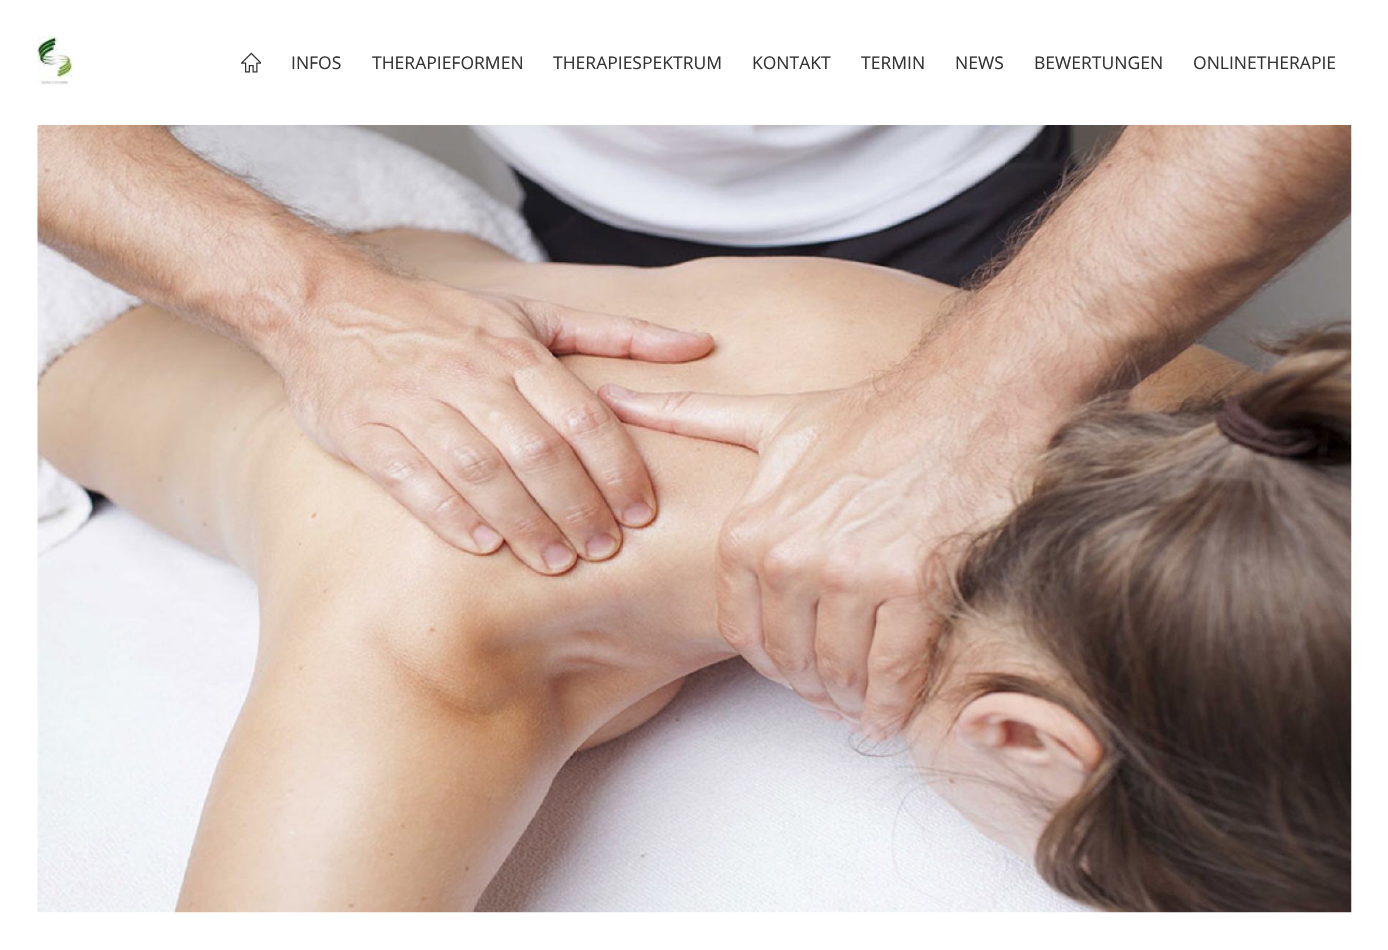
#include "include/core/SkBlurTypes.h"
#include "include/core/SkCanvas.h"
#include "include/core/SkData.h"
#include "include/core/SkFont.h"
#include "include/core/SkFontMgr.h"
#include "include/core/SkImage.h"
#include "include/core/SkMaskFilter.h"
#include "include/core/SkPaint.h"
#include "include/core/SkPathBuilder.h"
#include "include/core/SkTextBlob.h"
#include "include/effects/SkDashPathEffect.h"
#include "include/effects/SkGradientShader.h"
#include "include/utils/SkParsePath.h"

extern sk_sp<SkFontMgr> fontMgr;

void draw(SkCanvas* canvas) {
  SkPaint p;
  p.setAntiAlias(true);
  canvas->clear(SK_ColorWHITE);
  canvas->drawImageRect(SkImages::DeferredFromEncodedData(SkData::MakeFromFileName("images/1.png")), SkRect::MakeLTRB(37, 36, 73, 86), SkSamplingOptions());
  canvas->drawImageRect(SkImages::DeferredFromEncodedData(SkData::MakeFromFileName("images/2.png")), SkRect::MakeLTRB(241, 52, 261, 73), SkSamplingOptions());
  canvas->drawImageRect(SkImages::DeferredFromEncodedData(SkData::MakeFromFileName("images/3.png")), SkRect::MakeLTRB(37, 125, 1352, 913), SkSamplingOptions());
  SkFont font1(fontMgr->matchFamilyStyle("Open Sans", SkFontStyle::Normal()), 17.5f);
  font1.setSubpixel(true);
  p.setColor(SkColorSetRGB(51, 51, 51));
  canvas->drawString("INFOS", 291, 69, font1, p);
  canvas->drawString("THERAPIEFORMEN", 372, 69, font1, p);
  canvas->drawString("THERAPIESPEKTRUM", 553, 69, font1, p);
  canvas->drawString("KONTAKT", 752, 69, font1, p);
  canvas->drawString("TERMIN", 861, 69, font1, p);
  canvas->drawString("NEWS", 955, 69, font1, p);
  canvas->drawString("BEWERTUNGEN", 1034, 69, font1, p);
  canvas->drawString("ONLINETHERAPIE", 1193, 69, font1, p);
}
